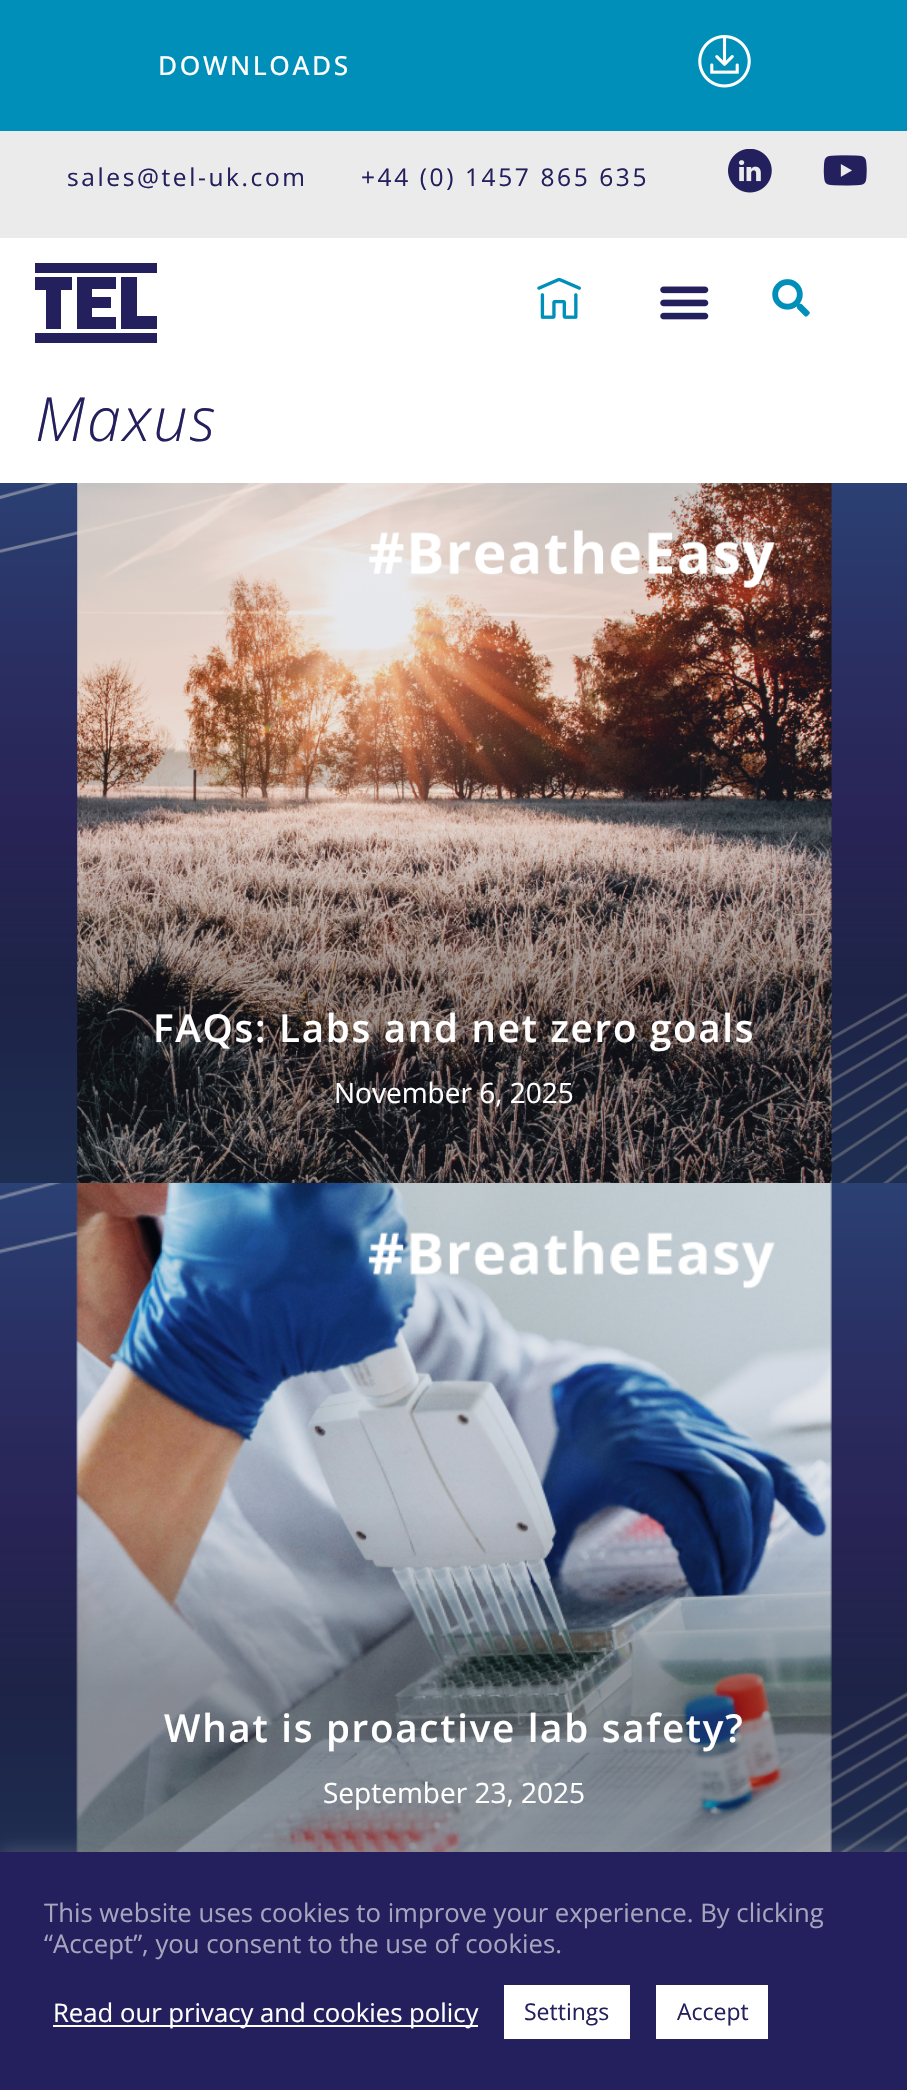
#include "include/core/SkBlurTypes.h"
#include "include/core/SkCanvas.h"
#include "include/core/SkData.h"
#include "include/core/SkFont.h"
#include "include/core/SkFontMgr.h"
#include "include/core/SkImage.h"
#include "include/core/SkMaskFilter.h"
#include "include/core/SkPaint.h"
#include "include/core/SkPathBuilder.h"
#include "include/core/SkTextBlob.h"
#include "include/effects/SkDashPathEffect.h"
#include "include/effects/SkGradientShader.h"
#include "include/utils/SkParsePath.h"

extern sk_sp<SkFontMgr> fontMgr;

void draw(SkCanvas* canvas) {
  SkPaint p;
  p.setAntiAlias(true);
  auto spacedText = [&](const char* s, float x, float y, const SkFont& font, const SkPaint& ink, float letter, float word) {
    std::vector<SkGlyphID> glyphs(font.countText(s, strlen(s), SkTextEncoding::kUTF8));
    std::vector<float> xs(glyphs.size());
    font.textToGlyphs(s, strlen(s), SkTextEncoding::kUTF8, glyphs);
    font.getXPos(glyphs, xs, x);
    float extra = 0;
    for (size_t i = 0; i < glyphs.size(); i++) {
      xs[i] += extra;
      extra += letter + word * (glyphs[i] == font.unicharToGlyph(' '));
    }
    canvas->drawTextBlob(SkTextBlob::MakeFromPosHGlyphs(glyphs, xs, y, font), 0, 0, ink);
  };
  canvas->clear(SK_ColorWHITE);
  p.setColor(SkColorSetRGB(235, 235, 235));
  canvas->drawRect(SkRect::MakeLTRB(0, 131, 907, 238), p);
  p.setColor(SkColorSetRGB(0, 143, 184));
  canvas->drawRect(SkRect::MakeLTRB(0, 0, 907, 131), p);
  canvas->drawImageRect(SkImages::DeferredFromEncodedData(SkData::MakeFromFileName("images/1.png")), SkRect::MakeLTRB(698, 35, 751, 88), SkSamplingOptions());
  canvas->drawImageRect(SkImages::DeferredFromEncodedData(SkData::MakeFromFileName("images/2.png")), SkRect::MakeLTRB(728, 149, 772, 193), SkSamplingOptions());
  canvas->drawImageRect(SkImages::DeferredFromEncodedData(SkData::MakeFromFileName("images/3.png")), SkRect::MakeLTRB(823, 155, 867, 186), SkSamplingOptions());
  p.setColor(SkColorSetRGB(36, 31, 93));
  canvas->drawPath(SkPathBuilder().moveTo(61, 290).lineTo(61, 329).lineTo(46, 329).lineTo(46, 290).lineTo(35, 290).lineTo(35, 277).lineTo(72, 277).lineTo(72, 290).close().detach(), p);
  canvas->drawPath(SkPathBuilder().moveTo(116, 317).lineTo(116, 329).lineTo(77, 329).lineTo(77, 277).lineTo(116, 277).lineTo(116, 289).lineTo(92, 289).lineTo(92, 297).lineTo(111, 297).lineTo(111, 308).lineTo(92, 308).lineTo(92, 317).close().detach(), p);
  canvas->drawPath(SkPathBuilder().moveTo(157, 316).lineTo(157, 329).lineTo(121, 329).lineTo(121, 277).lineTo(137, 277).lineTo(137, 316).close().detach(), p);
  canvas->drawRect(SkRect::MakeLTRB(35, 333, 157, 343), p);
  canvas->drawRect(SkRect::MakeLTRB(35, 263, 157, 273), p);
  canvas->drawImageRect(SkImages::DeferredFromEncodedData(SkData::MakeFromFileName("images/4.png")), SkRect::MakeLTRB(537, 277, 581, 319), SkSamplingOptions());
  canvas->drawImageRect(SkImages::DeferredFromEncodedData(SkData::MakeFromFileName("images/5.png")), SkRect::MakeLTRB(660, 286, 709, 320), SkSamplingOptions());
  canvas->drawImageRect(SkImages::DeferredFromEncodedData(SkData::MakeFromFileName("images/6.png")), SkRect::MakeLTRB(772, 279, 810, 317), SkSamplingOptions());
  canvas->drawImageRect(SkImages::DeferredFromEncodedData(SkData::MakeFromFileName("images/7.png")), SkRect::MakeLTRB(0, 483, 907, 1183), SkSamplingOptions());
  canvas->drawImageRect(SkImages::DeferredFromEncodedData(SkData::MakeFromFileName("images/8.png")), SkRect::MakeLTRB(0, 1183, 907, 1852), SkSamplingOptions());
  p.setColor(SkColorSetARGB(77, 172, 171, 171));
  p.setMaskFilter(SkMaskFilter::MakeBlur(kNormal_SkBlurStyle, 9));
  canvas->drawRect(SkRect::MakeLTRB(0, 1850, 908, 2090), p);
  p.setMaskFilter(nullptr);
  p.setColor(SkColorSetRGB(36, 31, 93));
  canvas->drawRect(SkRect::MakeLTRB(0, 1852, 907, 2090), p);
  p.setColor(SK_ColorWHITE);
  canvas->drawRect(SkRect::MakeLTRB(53, 2025, 478, 2027), p);
  canvas->drawRect(SkRect::MakeLTRB(504, 1985, 630, 2039), p);
  canvas->drawRect(SkRect::MakeLTRB(656, 1985, 768, 2039), p);
  SkFont font1(fontMgr->matchFamilyStyle("Open Sans", SkFontStyle(500, SkFontStyle::kNormal_Width, SkFontStyle::kUpright_Slant)), 26.25f);
  font1.setSubpixel(true);
  spacedText("DOWNLOADS", 158, 75, font1, p, 2.6f, 0);
  SkFont font2(fontMgr->matchFamilyStyle("Open Sans", SkFontStyle::Normal()), 24.5f);
  font2.setSubpixel(true);
  p.setColor(SkColorSetRGB(36, 31, 93));
  spacedText("sales@tel-uk.com", 67, 186, font2, p, 2.6f, 0);
  spacedText("+44 (0) 1457 865 635", 361, 186, font2, p, 2.6f, 0);
  SkFont font3(fontMgr->matchFamilyStyle("Open Sans", SkFontStyle(300, SkFontStyle::kNormal_Width, SkFontStyle::kItalic_Slant)), 61);
  font3.setSubpixel(true);
  spacedText("Maxus", 35, 441, font3, p, 2, 0);
  SkFont font4(fontMgr->matchFamilyStyle("Open Sans", SkFontStyle(600, SkFontStyle::kNormal_Width, SkFontStyle::kUpright_Slant)), 38.5f);
  font4.setSubpixel(true);
  p.setColor(SK_ColorWHITE);
  spacedText("FAQs: Labs and net zero goals", 153, 1042, font4, p, 1.75f, 0);
  SkFont font5(fontMgr->matchFamilyStyle("Open Sans", SkFontStyle::Normal()), 28);
  font5.setSubpixel(true);
  canvas->drawString("November 6, 2025", 334, 1103, font5, p);
  spacedText("What is proactive lab safety?", 164, 1742, font4, p, 1.75f, 0);
  canvas->drawString("September 23, 2025", 323, 1803, font5, p);
  SkFont font6(fontMgr->matchFamilyStyle("Open Sans", SkFontStyle::Normal()), 25.7f);
  font6.setSubpixel(true);
  p.setColor(SkColorSetRGB(167, 165, 190));
  canvas->drawString("This website uses cookies to improve your experience. By clicking", 44, 1922, font6, p);
  canvas->drawString("“Accept”, you consent to the use of cookies.", 44, 1953, font6, p);
  p.setColor(SK_ColorWHITE);
  canvas->drawString("Read our privacy and cookies policy", 53, 2022, font6, p);
  SkFont font7(fontMgr->matchFamilyStyle("Open Sans", SkFontStyle::Normal()), 23);
  font7.setSubpixel(true);
  p.setColor(SkColorSetRGB(36, 31, 93));
  canvas->drawString("Settings", 524, 2020, font7, p);
  canvas->drawString("Accept", 677, 2020, font7, p);
}
